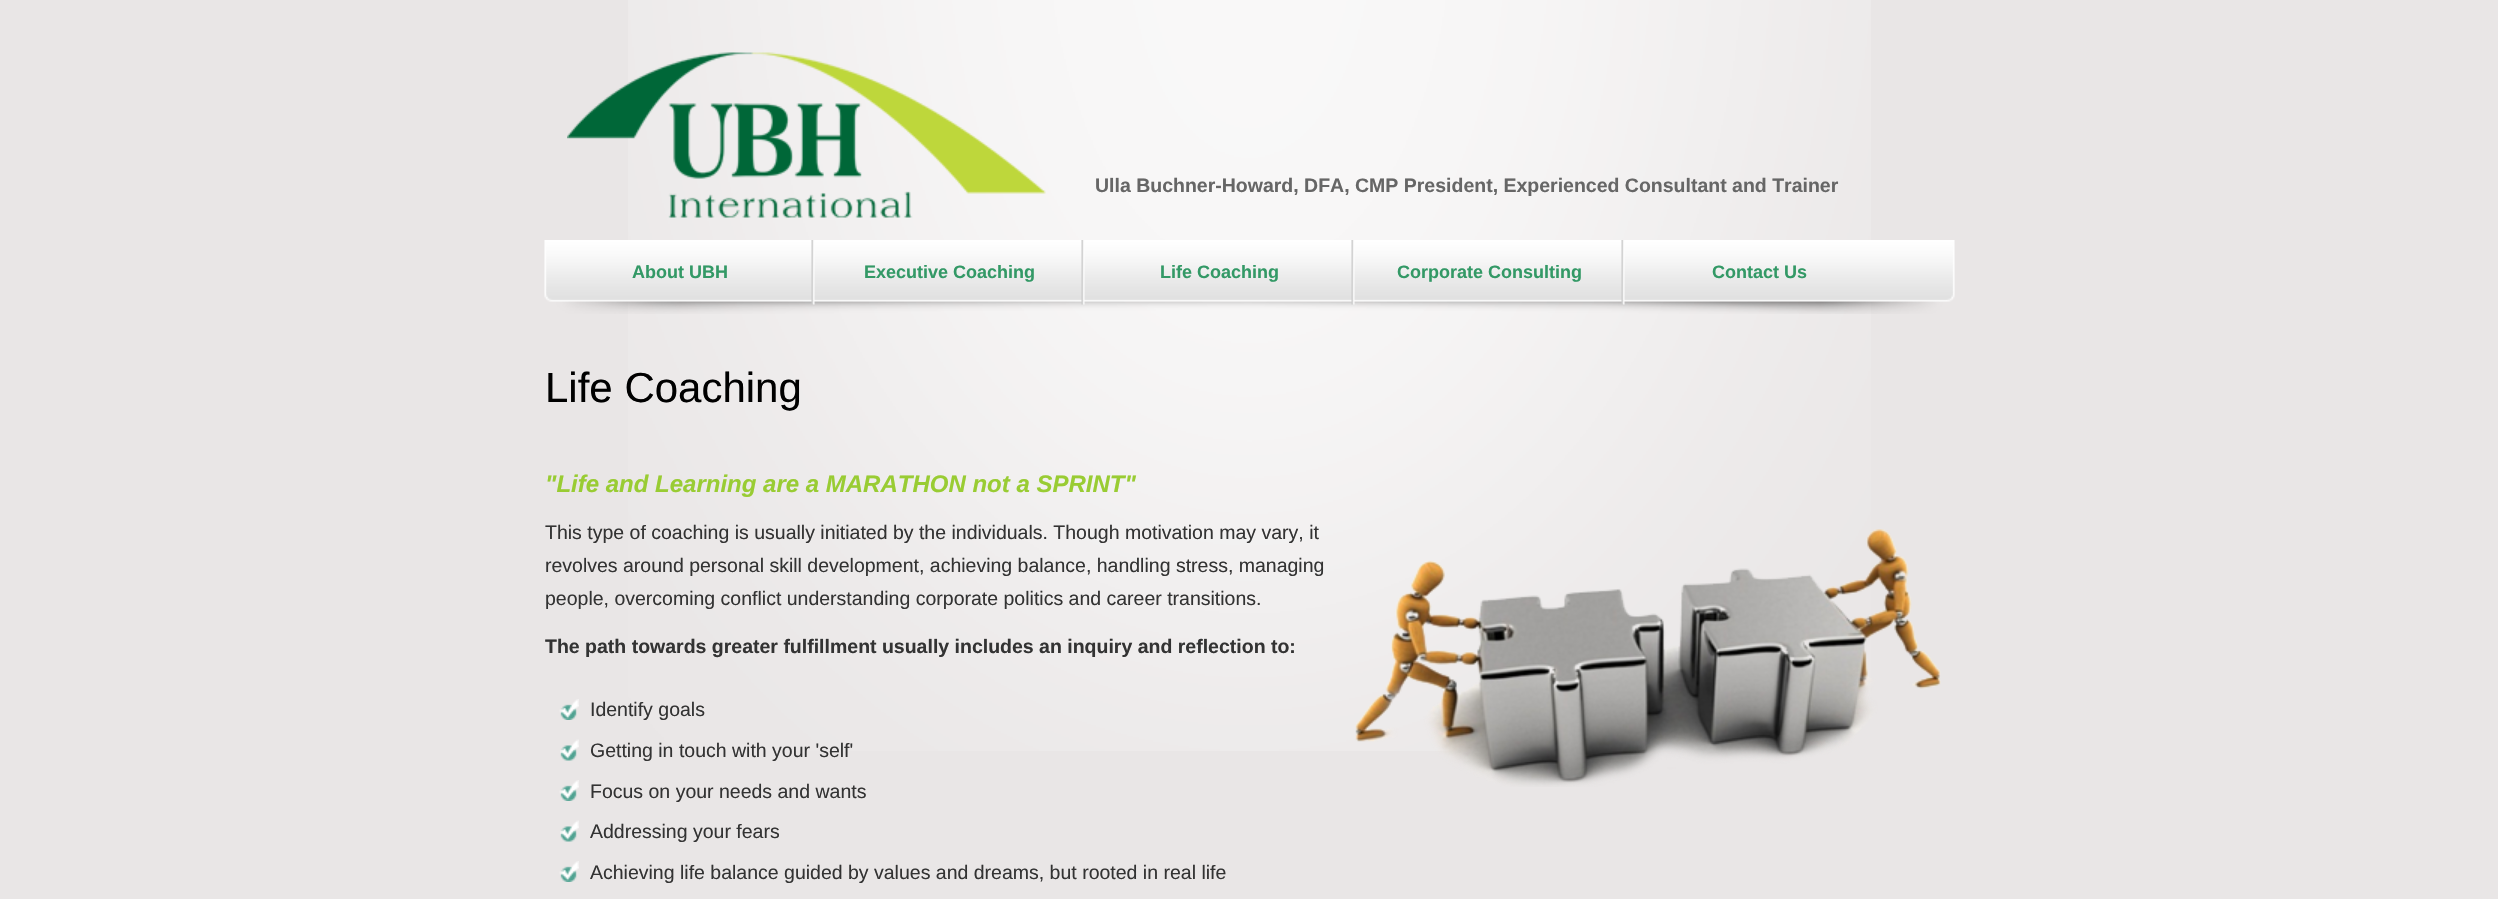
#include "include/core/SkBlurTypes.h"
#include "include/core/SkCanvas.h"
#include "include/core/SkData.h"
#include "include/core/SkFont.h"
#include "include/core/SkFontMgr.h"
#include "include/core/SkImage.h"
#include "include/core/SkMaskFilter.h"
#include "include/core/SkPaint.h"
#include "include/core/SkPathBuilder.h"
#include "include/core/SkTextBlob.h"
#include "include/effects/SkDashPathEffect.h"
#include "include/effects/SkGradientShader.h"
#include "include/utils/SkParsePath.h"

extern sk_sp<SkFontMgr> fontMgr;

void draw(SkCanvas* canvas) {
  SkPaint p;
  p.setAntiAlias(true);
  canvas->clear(SkColorSetRGB(233, 230, 230));
  canvas->drawImageRect(SkImages::DeferredFromEncodedData(SkData::MakeFromFileName("images/1.png")), SkRect::MakeLTRB(628, 0, 1871, 751), SkSamplingOptions());
  canvas->drawImageRect(SkImages::DeferredFromEncodedData(SkData::MakeFromFileName("images/2.png")), SkRect::MakeLTRB(567, 52, 1046, 218), SkSamplingOptions());
  canvas->drawImageRect(SkImages::DeferredFromEncodedData(SkData::MakeFromFileName("images/3.png")), SkRect::MakeLTRB(544, 240, 1955, 314), SkSamplingOptions());
  canvas->drawImageRect(SkImages::DeferredFromEncodedData(SkData::MakeFromFileName("images/4.png")), SkRect::MakeLTRB(811, 240, 815, 305), SkSamplingOptions());
  canvas->drawImageRect(SkImages::DeferredFromEncodedData(SkData::MakeFromFileName("images/5.png")), SkRect::MakeLTRB(1081, 240, 1085, 305), SkSamplingOptions());
  canvas->drawImageRect(SkImages::DeferredFromEncodedData(SkData::MakeFromFileName("images/6.png")), SkRect::MakeLTRB(1351, 240, 1355, 305), SkSamplingOptions());
  canvas->drawImageRect(SkImages::DeferredFromEncodedData(SkData::MakeFromFileName("images/7.png")), SkRect::MakeLTRB(1621, 240, 1625, 305), SkSamplingOptions());
  canvas->drawImageRect(SkImages::DeferredFromEncodedData(SkData::MakeFromFileName("images/8.png")), SkRect::MakeLTRB(1355, 529, 1941, 787), SkSamplingOptions());
  canvas->drawImageRect(SkImages::DeferredFromEncodedData(SkData::MakeFromFileName("images/9.png")), SkRect::MakeLTRB(559, 699, 579, 720), SkSamplingOptions());
  canvas->drawImageRect(SkImages::DeferredFromEncodedData(SkData::MakeFromFileName("images/10.png")), SkRect::MakeLTRB(560, 739, 579, 761), SkSamplingOptions());
  canvas->drawImageRect(SkImages::DeferredFromEncodedData(SkData::MakeFromFileName("images/9.png")), SkRect::MakeLTRB(559, 780, 579, 801), SkSamplingOptions());
  canvas->drawImageRect(SkImages::DeferredFromEncodedData(SkData::MakeFromFileName("images/10.png")), SkRect::MakeLTRB(560, 820, 579, 842), SkSamplingOptions());
  canvas->drawImageRect(SkImages::DeferredFromEncodedData(SkData::MakeFromFileName("images/9.png")), SkRect::MakeLTRB(559, 861, 579, 882), SkSamplingOptions());
  SkFont font1(fontMgr->matchFamilyStyle("Liberation Sans", SkFontStyle::Bold()), 19.5f);
  font1.setSubpixel(true);
  p.setColor(SkColorSetRGB(102, 102, 102));
  canvas->drawString("Ulla Buchner-Howard, DFA, CMP President, Experienced Consultant and Trainer", 1095, 192, font1, p);
  SkFont font2(fontMgr->matchFamilyStyle("Liberation Sans", SkFontStyle::Bold()), 18);
  font2.setSubpixel(true);
  p.setColor(SkColorSetRGB(51, 153, 102));
  canvas->drawString("About UBH", 632, 278, font2, p);
  canvas->drawString("Executive Coaching", 864, 278, font2, p);
  canvas->drawString("Life Coaching", 1160, 278, font2, p);
  canvas->drawString("Corporate Consulting", 1397, 278, font2, p);
  canvas->drawString("Contact Us", 1712, 278, font2, p);
  SkFont font3(fontMgr->matchFamilyStyle("Liberation Sans", SkFontStyle::Normal()), 42);
  font3.setSubpixel(true);
  p.setColor(SK_ColorBLACK);
  canvas->drawString("Life Coaching", 545, 402, font3, p);
  SkFont font4(fontMgr->matchFamilyStyle("Liberation Sans", SkFontStyle::BoldItalic()), 24);
  font4.setSubpixel(true);
  p.setColor(SkColorSetRGB(153, 204, 51));
  canvas->drawString("\"Life and Learning are a MARATHON not a SPRINT\"", 545, 492, font4, p);
  SkFont font5(fontMgr->matchFamilyStyle("Liberation Sans", SkFontStyle::Normal()), 19.5f);
  font5.setSubpixel(true);
  p.setColor(SkColorSetRGB(51, 51, 51));
  canvas->drawString("This type of coaching is usually initiated by the individuals. Though motivation may vary, it", 545, 539, font5, p);
  canvas->drawString("revolves around personal skill development, achieving balance, handling stress, managing", 545, 572, font5, p);
  canvas->drawString("people, overcoming conflict understanding corporate politics and career transitions.", 545, 605, font5, p);
  canvas->drawString("The path towards greater fulfillment usually includes an inquiry and reflection to:", 545, 653, font1, p);
  canvas->drawString("Identify goals", 590, 716, font5, p);
  canvas->drawString("Getting in touch with your 'self'", 590, 757, font5, p);
  canvas->drawString("Focus on your needs and wants", 590, 798, font5, p);
  canvas->drawString("Addressing your fears", 590, 838, font5, p);
  canvas->drawString("Achieving life balance guided by values and dreams, but rooted in real life", 590, 879, font5, p);
}
